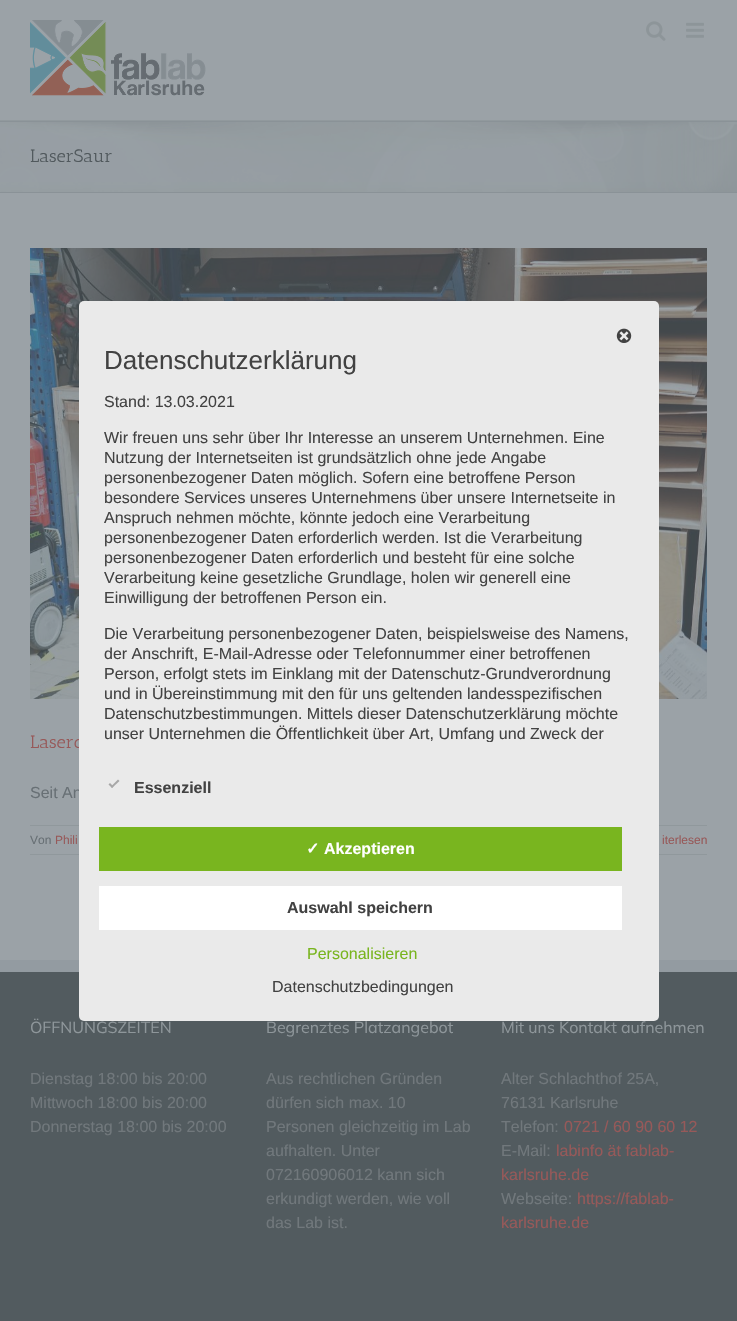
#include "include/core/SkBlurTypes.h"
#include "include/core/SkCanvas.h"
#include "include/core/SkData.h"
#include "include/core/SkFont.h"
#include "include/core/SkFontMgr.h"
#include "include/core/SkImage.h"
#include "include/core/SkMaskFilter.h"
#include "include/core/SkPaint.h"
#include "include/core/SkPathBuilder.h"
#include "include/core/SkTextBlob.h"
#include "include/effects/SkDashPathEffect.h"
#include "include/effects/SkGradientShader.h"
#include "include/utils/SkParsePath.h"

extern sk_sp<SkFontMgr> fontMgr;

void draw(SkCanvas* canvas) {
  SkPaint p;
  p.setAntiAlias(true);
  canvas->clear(SkColorSetRGB(155, 162, 167));
  p.setColor(SkColorSetRGB(145, 153, 157));
  canvas->drawRect(SkRect::MakeLTRB(0, 120, 737, 121), p);
  canvas->drawImageRect(SkImages::DeferredFromEncodedData(SkData::MakeFromFileName("images/1.png")), SkRect::MakeLTRB(30, 20, 206, 96), SkSamplingOptions());
  canvas->drawImageRect(SkImages::DeferredFromEncodedData(SkData::MakeFromFileName("images/2.png")), SkRect::MakeLTRB(646, 21, 666, 41), SkSamplingOptions());
  canvas->drawImageRect(SkImages::DeferredFromEncodedData(SkData::MakeFromFileName("images/3.png")), SkRect::MakeLTRB(686, 22, 704, 38), SkSamplingOptions());
  p.setColor(SkColorSetRGB(151, 159, 163));
  canvas->drawRect(SkRect::MakeLTRB(0, 122, 737, 192), p);
  canvas->drawImageRect(SkImages::DeferredFromEncodedData(SkData::MakeFromFileName("images/4.png")), SkRect::MakeLTRB(0, 122, 737, 192), SkSamplingOptions());
  p.setColor(SkColorSetRGB(138, 146, 151));
  canvas->drawRect(SkRect::MakeLTRB(0, 121, 737, 122), p);
  canvas->drawRect(SkRect::MakeLTRB(0, 192, 737, 193), p);
  canvas->drawImageRect(SkImages::DeferredFromEncodedData(SkData::MakeFromFileName("images/5.png")), SkRect::MakeLTRB(30, 248, 707, 699), SkSamplingOptions());
  p.setColor(SkColorSetRGB(144, 152, 156));
  canvas->drawRect(SkRect::MakeLTRB(30, 825, 707, 826), p);
  canvas->drawRect(SkRect::MakeLTRB(30, 854, 707, 855), p);
  p.setColor(SkColorSetRGB(82, 91, 95));
  canvas->drawRect(SkRect::MakeLTRB(0, 972, 737, 1321), p);
  p.setColor(SkColorSetRGB(147, 155, 161));
  canvas->drawRect(SkRect::MakeLTRB(0, 960, 737, 972), p);
  SkFont font1(fontMgr->matchFamilyStyle("Antic Slab", SkFontStyle::Normal()), 18);
  font1.setSubpixel(true);
  p.setColor(SkColorSetRGB(81, 89, 93));
  canvas->drawString("LaserSaur", 30, 162, font1, p);
  p.setColor(SkColorSetRGB(151, 89, 89));
  canvas->drawString("Laserc", 30, 748, font1, p);
  SkFont font2(fontMgr->matchFamilyStyle("Liberation Sans", SkFontStyle::Normal()), 16);
  font2.setSubpixel(true);
  p.setColor(SkColorSetRGB(104, 112, 117));
  canvas->drawString("Seit An", 30, 798, font2, p);
  SkFont font3(fontMgr->matchFamilyStyle("Liberation Sans", SkFontStyle::Normal()), 12);
  font3.setSubpixel(true);
  canvas->drawString("Von", 30, 844, font3, p);
  p.setColor(SkColorSetRGB(151, 89, 89));
  canvas->drawString("Phili", 55, 844, font3, p);
  canvas->drawString("iterlesen", 662, 844, font3, p);
  SkFont font4(fontMgr->matchFamilyStyle("Mulish", SkFontStyle(200, SkFontStyle::kNormal_Width, SkFontStyle::kUpright_Slant)), 16);
  font4.setSubpixel(true);
  p.setColor(SkColorSetRGB(142, 150, 154));
  canvas->drawString("ÖFFNUNGSZEITEN", 30, 1033, font4, p);
  p.setColor(SkColorSetRGB(113, 120, 124));
  canvas->drawString("Dienstag 18:00 bis 20:00", 30, 1084, font2, p);
  canvas->drawString("Mittwoch 18:00 bis 20:00", 30, 1108, font2, p);
  canvas->drawString("Donnerstag 18:00 bis 20:00", 30, 1132, font2, p);
  p.setColor(SkColorSetRGB(142, 150, 154));
  canvas->drawString("Begrenztes Platzangebot", 266, 1033, font4, p);
  p.setColor(SkColorSetRGB(113, 120, 124));
  canvas->drawString("Aus rechtlichen Gründen", 266, 1084, font2, p);
  canvas->drawString("dürfen sich max. 10", 266, 1108, font2, p);
  canvas->drawString("Personen gleichzeitig im Lab", 266, 1132, font2, p);
  canvas->drawString("aufhalten. Unter", 266, 1156, font2, p);
  canvas->drawString("072160906012 kann sich", 266, 1180, font2, p);
  canvas->drawString("erkundigt werden, wie voll", 266, 1204, font2, p);
  canvas->drawString("das Lab ist.", 266, 1228, font2, p);
  p.setColor(SkColorSetRGB(142, 150, 154));
  canvas->drawString("Mit uns Kontakt aufnehmen", 501, 1033, font4, p);
  p.setColor(SkColorSetRGB(113, 120, 124));
  canvas->drawString("Alter Schlachthof 25A,", 501, 1084, font2, p);
  canvas->drawString("76131 Karlsruhe", 501, 1108, font2, p);
  canvas->drawString("Telefon:", 501, 1132, font2, p);
  p.setColor(SkColorSetRGB(151, 89, 89));
  canvas->drawString("0721 / 60 90 60 12", 564, 1132, font2, p);
  p.setColor(SkColorSetRGB(113, 120, 124));
  canvas->drawString("E-Mail:", 501, 1156, font2, p);
  p.setColor(SkColorSetRGB(151, 89, 89));
  canvas->drawString("labinfo ät fablab-", 556, 1156, font2, p);
  canvas->drawString("karlsruhe.de", 501, 1180, font2, p);
  p.setColor(SkColorSetRGB(113, 120, 124));
  canvas->drawString("Webseite:", 501, 1204, font2, p);
  p.setColor(SkColorSetRGB(151, 89, 89));
  canvas->drawString("https://fablab-", 577, 1204, font2, p);
  canvas->drawString("karlsruhe.de", 501, 1228, font2, p);
  p.setColor(SkColorSetRGB(234, 234, 234));
  canvas->drawRoundRect(SkRect::MakeLTRB(79, 301, 659, 1021), 5, 5, p);
  canvas->drawImageRect(SkImages::DeferredFromEncodedData(SkData::MakeFromFileName("images/6.png")), SkRect::MakeLTRB(616, 328, 632, 343), SkSamplingOptions());
  SkFont font5(fontMgr->matchFamilyStyle("Liberation Sans", SkFontStyle::Normal()), 26);
  font5.setSubpixel(true);
  p.setColor(SkColorSetRGB(66, 66, 66));
  canvas->drawString("Datenschutzerklärung", 104, 369, font5, p);
  canvas->drawString("Stand: 13.03.2021", 104, 407, font2, p);
  canvas->drawString("Wir freuen uns sehr über Ihr Interesse an unserem Unternehmen. Eine", 104, 443, font2, p);
  canvas->drawString("Nutzung der Internetseiten ist grundsätzlich ohne jede Angabe", 104, 463, font2, p);
  canvas->drawString("personenbezogener Daten möglich. Sofern eine betroffene Person", 104, 483, font2, p);
  canvas->drawString("besondere Services unseres Unternehmens über unsere Internetseite in", 104, 503, font2, p);
  canvas->drawString("Anspruch nehmen möchte, könnte jedoch eine Verarbeitung", 104, 523, font2, p);
  canvas->drawString("personenbezogener Daten erforderlich werden. Ist die Verarbeitung", 104, 543, font2, p);
  canvas->drawString("personenbezogener Daten erforderlich und besteht für eine solche", 104, 563, font2, p);
  canvas->drawString("Verarbeitung keine gesetzliche Grundlage, holen wir generell eine", 104, 583, font2, p);
  canvas->drawString("Einwilligung der betroffenen Person ein.", 104, 603, font2, p);
  canvas->drawString("Die Verarbeitung personenbezogener Daten, beispielsweise des Namens,", 104, 639, font2, p);
  canvas->drawString("der Anschrift, E-Mail-Adresse oder Telefonnummer einer betroffenen", 104, 659, font2, p);
  canvas->drawString("Person, erfolgt stets im Einklang mit der Datenschutz-Grundverordnung", 104, 679, font2, p);
  canvas->drawString("und in Übereinstimmung mit den für uns geltenden landesspezifischen", 104, 699, font2, p);
  canvas->drawString("Datenschutzbestimmungen. Mittels dieser Datenschutzerklärung möchte", 104, 719, font2, p);
  canvas->save();
  canvas->clipRect(SkRect::MakeLTRB(104, 346, 644, 742));
  canvas->drawString("unser Unternehmen die Öffentlichkeit über Art, Umfang und Zweck der", 104, 739, font2, p);
  canvas->restore();
  p.setColor(SkColorSetRGB(167, 167, 167));
  canvas->drawPath(SkPathBuilder().moveTo(118, 779.5f).lineTo(119.5f, 781).lineTo(112, 788).lineTo(111, 786.5f).close().detach(), p);
  canvas->drawPath(SkPathBuilder().moveTo(110, 783).lineTo(113.5f, 786.5f).lineTo(112, 788).lineTo(108.5f, 784.5f).close().detach(), p);
  SkFont font6(fontMgr->matchFamilyStyle("Liberation Sans", SkFontStyle::Bold()), 16);
  font6.setSubpixel(true);
  p.setColor(SkColorSetRGB(66, 66, 66));
  canvas->drawString("Essenziell", 134, 793, font6, p);
  p.setColor(SkColorSetRGB(121, 181, 31));
  canvas->drawRect(SkRect::MakeLTRB(99, 827, 622, 871), p);
  SkFont font7(fontMgr->matchFamilyStyle("DejaVu Sans", SkFontStyle::Bold()), 16);
  font7.setSubpixel(true);
  p.setColor(SK_ColorWHITE);
  canvas->drawString("✓", 306, 854, font7, p);
  canvas->drawString("Akzeptieren", 324, 854, font6, p);
  canvas->drawRect(SkRect::MakeLTRB(99, 886, 622, 930), p);
  p.setColor(SkColorSetRGB(66, 66, 66));
  canvas->drawString("Auswahl speichern", 287, 913, font6, p);
  p.setColor(SkColorSetRGB(121, 181, 31));
  canvas->drawString("Personalisieren", 307, 959, font2, p);
  p.setColor(SkColorSetRGB(66, 66, 66));
  canvas->drawString("Datenschutzbedingungen", 272, 992, font2, p);
}
